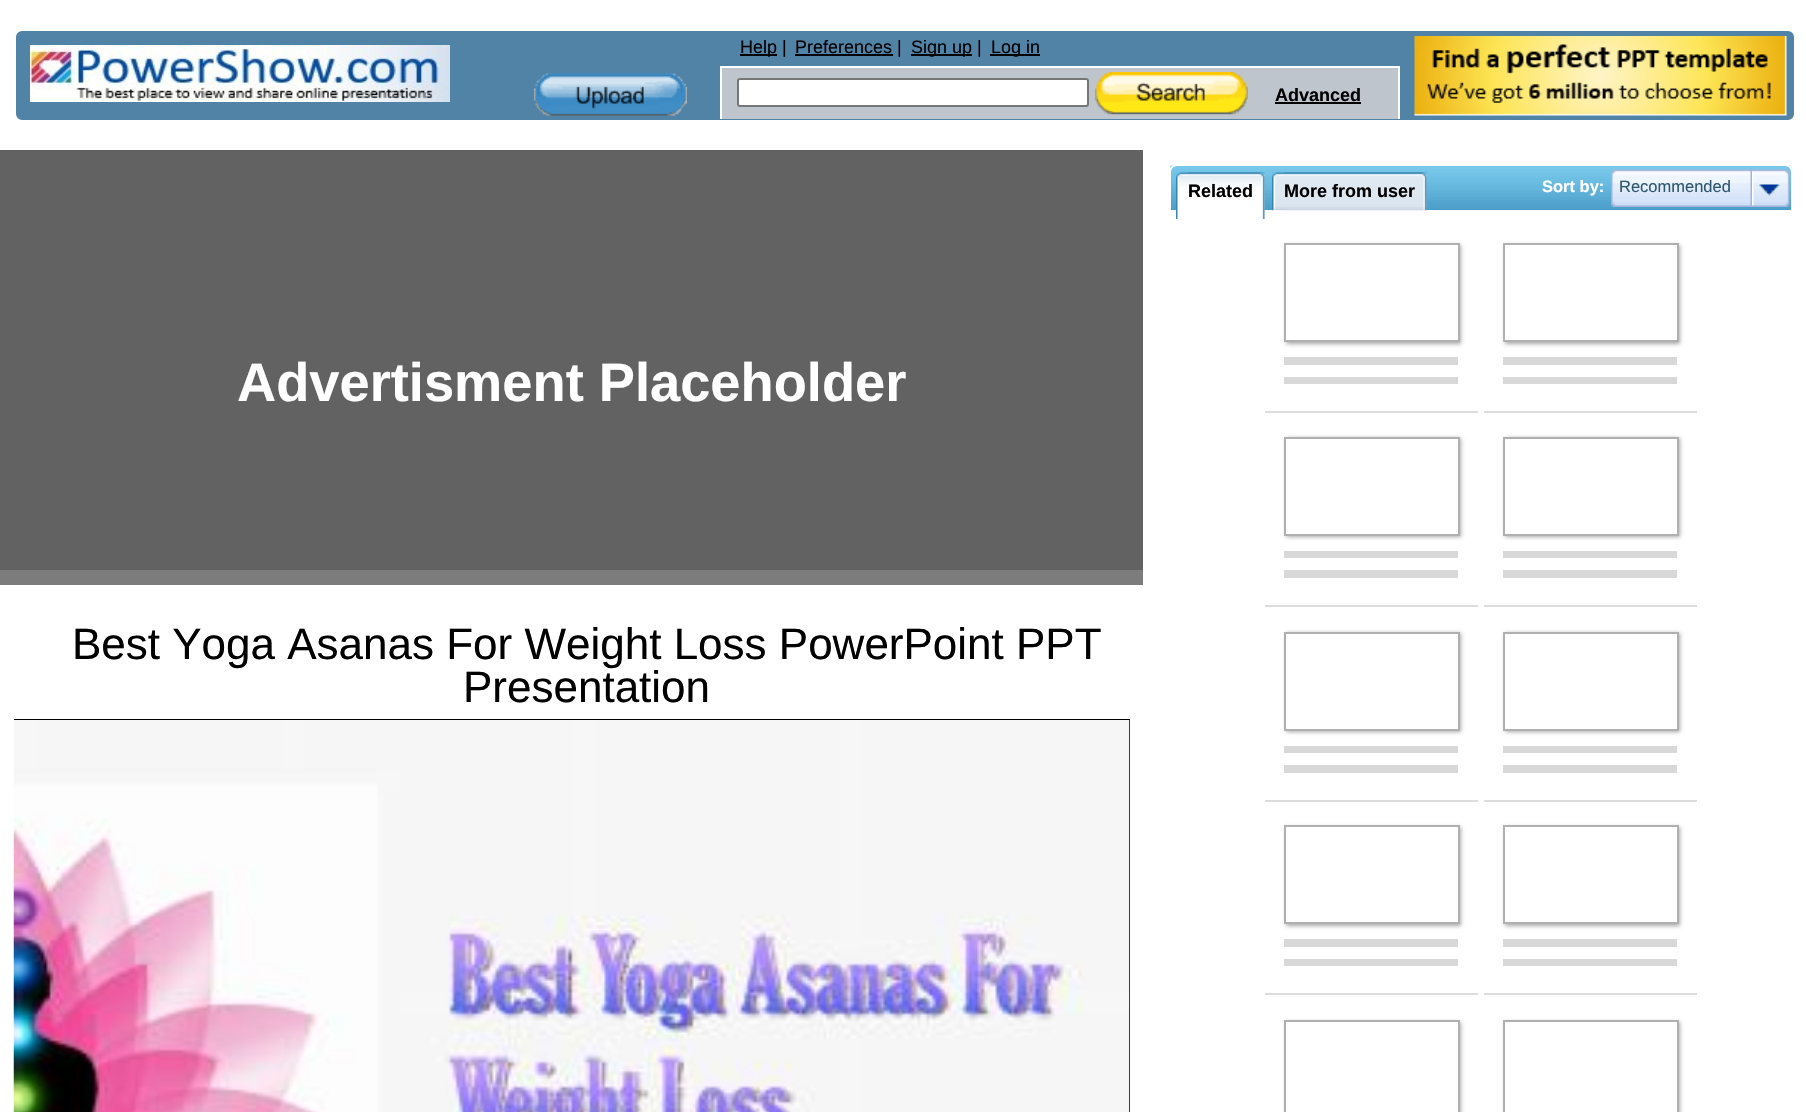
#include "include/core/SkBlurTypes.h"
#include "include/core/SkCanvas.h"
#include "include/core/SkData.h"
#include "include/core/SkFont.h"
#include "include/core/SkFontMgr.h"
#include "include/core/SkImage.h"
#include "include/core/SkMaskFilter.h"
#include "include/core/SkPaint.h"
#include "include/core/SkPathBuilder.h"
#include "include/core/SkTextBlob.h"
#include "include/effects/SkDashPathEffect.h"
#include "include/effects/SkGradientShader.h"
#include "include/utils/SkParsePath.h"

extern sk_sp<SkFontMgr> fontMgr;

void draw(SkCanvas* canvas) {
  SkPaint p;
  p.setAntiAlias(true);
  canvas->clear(SK_ColorWHITE);
  p.setColor(SkColorSetRGB(81, 131, 166));
  canvas->drawRoundRect(SkRect::MakeLTRB(15, 30, 1795, 121), 7, 7, p);
  p.setStyle(SkPaint::kStroke_Style);
  p.setStrokeWidth(2);
  p.setColor(SK_ColorWHITE);
  canvas->drawRoundRect(SkRect::MakeLTRB(15, 30, 1795, 121), 7, 7, p);
  canvas->drawImageRect(SkImages::DeferredFromEncodedData(SkData::MakeFromFileName("images/1.png")), SkRect::MakeLTRB(30, 45, 450, 102), SkSamplingOptions());
  canvas->drawImageRect(SkImages::DeferredFromEncodedData(SkData::MakeFromFileName("images/2.png")), SkRect::MakeLTRB(534, 73, 687, 116), SkSamplingOptions());
  p.setStyle(SkPaint::kFill_Style);
  p.setColor(SK_ColorBLACK);
  canvas->drawRect(SkRect::MakeLTRB(740, 54, 777, 56), p);
  canvas->drawRect(SkRect::MakeLTRB(795, 54, 893, 56), p);
  canvas->drawRect(SkRect::MakeLTRB(911, 54, 972, 56), p);
  canvas->drawRect(SkRect::MakeLTRB(990, 54, 1040, 56), p);
  p.setColor(SkColorSetRGB(191, 197, 205));
  canvas->drawRect(SkRect::MakeLTRB(722, 68, 1398, 119), p);
  p.setColor(SK_ColorWHITE);
  canvas->drawRect(SkRect::MakeLTRB(1398, 66, 1400, 119), p);
  canvas->drawRect(SkRect::MakeLTRB(720, 66, 722, 119), p);
  canvas->drawRect(SkRect::MakeLTRB(722, 66, 1398, 68), p);
  canvas->drawRoundRect(SkRect::MakeLTRB(738, 79, 1088, 106), 2, 2, p);
  p.setStyle(SkPaint::kStroke_Style);
  p.setColor(SkColorSetRGB(118, 118, 118));
  canvas->drawRoundRect(SkRect::MakeLTRB(738, 79, 1088, 106), 2, 2, p);
  canvas->drawImageRect(SkImages::DeferredFromEncodedData(SkData::MakeFromFileName("images/3.png")), SkRect::MakeLTRB(1095, 72, 1248, 115), SkSamplingOptions());
  p.setStyle(SkPaint::kFill_Style);
  p.setColor(SK_ColorBLACK);
  canvas->drawRect(SkRect::MakeLTRB(1275, 102, 1361, 104), p);
  canvas->drawImageRect(SkImages::DeferredFromEncodedData(SkData::MakeFromFileName("images/4.png")), SkRect::MakeLTRB(1414, 36, 1787, 116), SkSamplingOptions());
  canvas->drawImageRect(SkImages::DeferredFromEncodedData(SkData::MakeFromFileName("images/5.png")), SkRect::MakeLTRB(1170, 164, 1793, 210), SkSamplingOptions());
  p.setStyle(SkPaint::kStroke_Style);
  p.setColor(SK_ColorWHITE);
  canvas->drawPath(SkPathBuilder().moveTo(1177, 165).lineTo(1785, 165).cubicTo(1789, 165, 1792, 168, 1792, 172).lineTo(1792, 211).lineTo(1170, 211).lineTo(1170, 172).cubicTo(1170, 168, 1173, 165, 1177, 165).close().detach(), p);
  canvas->drawImageRect(SkImages::DeferredFromEncodedData(SkData::MakeFromFileName("images/6.png")), SkRect::MakeLTRB(1176, 172, 1265, 219), SkSamplingOptions());
  canvas->drawImageRect(SkImages::DeferredFromEncodedData(SkData::MakeFromFileName("images/7.png")), SkRect::MakeLTRB(1188, 172, 1265, 219), SkSamplingOptions());
  canvas->drawImageRect(SkImages::DeferredFromEncodedData(SkData::MakeFromFileName("images/8.png")), SkRect::MakeLTRB(1272, 172, 1427, 211), SkSamplingOptions());
  canvas->drawImageRect(SkImages::DeferredFromEncodedData(SkData::MakeFromFileName("images/9.png")), SkRect::MakeLTRB(1284, 172, 1427, 211), SkSamplingOptions());
  canvas->drawImageRect(SkImages::DeferredFromEncodedData(SkData::MakeFromFileName("images/10.png")), SkRect::MakeLTRB(1611, 169, 1752, 207), SkSamplingOptions());
  canvas->drawImageRect(SkImages::DeferredFromEncodedData(SkData::MakeFromFileName("images/11.png")), SkRect::MakeLTRB(1752, 169, 1790, 207), SkSamplingOptions());
  p.setStyle(SkPaint::kFill_Style);
  p.setColor(SkColorSetRGB(221, 221, 221));
  canvas->drawRect(SkRect::MakeLTRB(1265, 411, 1478, 413), p);
  canvas->save();
  canvas->clipPath(SkPathBuilder(SkPathFillType::kEvenOdd).moveTo(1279, 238).lineTo(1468, 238).lineTo(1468, 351).lineTo(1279, 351).close().moveTo(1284, 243).lineTo(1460, 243).lineTo(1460, 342).lineTo(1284, 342).close().detach(), true);
  p.setColor(SkColorSetRGB(170, 170, 170));
  p.setMaskFilter(SkMaskFilter::MakeBlur(kNormal_SkBlurStyle, 2));
  canvas->drawRect(SkRect::MakeLTRB(1286, 245, 1461, 344), p);
  p.setMaskFilter(nullptr);
  canvas->restore();
  p.setStyle(SkPaint::kStroke_Style);
  p.setColor(SkColorSetRGB(176, 176, 176));
  canvas->drawRect(SkRect::MakeLTRB(1285, 244, 1459, 341), p);
  p.setStyle(SkPaint::kFill_Style);
  p.setColor(SkColorSetRGB(216, 216, 216));
  canvas->drawRect(SkRect::MakeLTRB(1284, 357, 1458, 365), p);
  canvas->drawRect(SkRect::MakeLTRB(1284, 377, 1458, 384), p);
  p.setColor(SkColorSetRGB(221, 221, 221));
  canvas->drawRect(SkRect::MakeLTRB(1484, 411, 1697, 413), p);
  canvas->save();
  canvas->clipPath(SkPathBuilder(SkPathFillType::kEvenOdd).moveTo(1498, 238).lineTo(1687, 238).lineTo(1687, 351).lineTo(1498, 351).close().moveTo(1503, 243).lineTo(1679, 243).lineTo(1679, 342).lineTo(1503, 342).close().detach(), true);
  p.setColor(SkColorSetRGB(170, 170, 170));
  p.setMaskFilter(SkMaskFilter::MakeBlur(kNormal_SkBlurStyle, 2));
  canvas->drawRect(SkRect::MakeLTRB(1505, 245, 1680, 344), p);
  p.setMaskFilter(nullptr);
  canvas->restore();
  p.setStyle(SkPaint::kStroke_Style);
  p.setColor(SkColorSetRGB(176, 176, 176));
  canvas->drawRect(SkRect::MakeLTRB(1504, 244, 1678, 341), p);
  p.setStyle(SkPaint::kFill_Style);
  p.setColor(SkColorSetRGB(216, 216, 216));
  canvas->drawRect(SkRect::MakeLTRB(1503, 357, 1677, 365), p);
  canvas->drawRect(SkRect::MakeLTRB(1503, 377, 1677, 384), p);
  p.setColor(SkColorSetRGB(221, 221, 221));
  canvas->drawRect(SkRect::MakeLTRB(1265, 605, 1478, 607), p);
  canvas->save();
  canvas->clipPath(SkPathBuilder(SkPathFillType::kEvenOdd).moveTo(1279, 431).lineTo(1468, 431).lineTo(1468, 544).lineTo(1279, 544).close().moveTo(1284, 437).lineTo(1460, 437).lineTo(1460, 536).lineTo(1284, 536).close().detach(), true);
  p.setColor(SkColorSetRGB(170, 170, 170));
  p.setMaskFilter(SkMaskFilter::MakeBlur(kNormal_SkBlurStyle, 2));
  canvas->drawRect(SkRect::MakeLTRB(1286, 438, 1461, 537), p);
  p.setMaskFilter(nullptr);
  canvas->restore();
  p.setStyle(SkPaint::kStroke_Style);
  p.setColor(SkColorSetRGB(176, 176, 176));
  canvas->drawRect(SkRect::MakeLTRB(1285, 438, 1459, 535), p);
  p.setStyle(SkPaint::kFill_Style);
  p.setColor(SkColorSetRGB(216, 216, 216));
  canvas->drawRect(SkRect::MakeLTRB(1284, 551, 1458, 558), p);
  canvas->drawRect(SkRect::MakeLTRB(1284, 570, 1458, 578), p);
  p.setColor(SkColorSetRGB(221, 221, 221));
  canvas->drawRect(SkRect::MakeLTRB(1484, 605, 1697, 607), p);
  canvas->save();
  canvas->clipPath(SkPathBuilder(SkPathFillType::kEvenOdd).moveTo(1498, 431).lineTo(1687, 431).lineTo(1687, 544).lineTo(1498, 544).close().moveTo(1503, 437).lineTo(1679, 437).lineTo(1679, 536).lineTo(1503, 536).close().detach(), true);
  p.setColor(SkColorSetRGB(170, 170, 170));
  p.setMaskFilter(SkMaskFilter::MakeBlur(kNormal_SkBlurStyle, 2));
  canvas->drawRect(SkRect::MakeLTRB(1505, 438, 1680, 537), p);
  p.setMaskFilter(nullptr);
  canvas->restore();
  p.setStyle(SkPaint::kStroke_Style);
  p.setColor(SkColorSetRGB(176, 176, 176));
  canvas->drawRect(SkRect::MakeLTRB(1504, 438, 1678, 535), p);
  p.setStyle(SkPaint::kFill_Style);
  p.setColor(SkColorSetRGB(216, 216, 216));
  canvas->drawRect(SkRect::MakeLTRB(1503, 551, 1677, 558), p);
  canvas->drawRect(SkRect::MakeLTRB(1503, 570, 1677, 578), p);
  p.setColor(SkColorSetRGB(221, 221, 221));
  canvas->drawRect(SkRect::MakeLTRB(1265, 800, 1478, 802), p);
  canvas->save();
  canvas->clipPath(SkPathBuilder(SkPathFillType::kEvenOdd).moveTo(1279, 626).lineTo(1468, 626).lineTo(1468, 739).lineTo(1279, 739).close().moveTo(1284, 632).lineTo(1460, 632).lineTo(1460, 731).lineTo(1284, 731).close().detach(), true);
  p.setColor(SkColorSetRGB(170, 170, 170));
  p.setMaskFilter(SkMaskFilter::MakeBlur(kNormal_SkBlurStyle, 2));
  canvas->drawRect(SkRect::MakeLTRB(1286, 633, 1461, 732), p);
  p.setMaskFilter(nullptr);
  canvas->restore();
  p.setStyle(SkPaint::kStroke_Style);
  p.setColor(SkColorSetRGB(176, 176, 176));
  canvas->drawRect(SkRect::MakeLTRB(1285, 633, 1459, 730), p);
  p.setStyle(SkPaint::kFill_Style);
  p.setColor(SkColorSetRGB(216, 216, 216));
  canvas->drawRect(SkRect::MakeLTRB(1284, 746, 1458, 753), p);
  canvas->drawRect(SkRect::MakeLTRB(1284, 765, 1458, 773), p);
  p.setColor(SkColorSetRGB(221, 221, 221));
  canvas->drawRect(SkRect::MakeLTRB(1484, 800, 1697, 802), p);
  canvas->save();
  canvas->clipPath(SkPathBuilder(SkPathFillType::kEvenOdd).moveTo(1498, 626).lineTo(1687, 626).lineTo(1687, 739).lineTo(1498, 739).close().moveTo(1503, 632).lineTo(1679, 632).lineTo(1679, 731).lineTo(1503, 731).close().detach(), true);
  p.setColor(SkColorSetRGB(170, 170, 170));
  p.setMaskFilter(SkMaskFilter::MakeBlur(kNormal_SkBlurStyle, 2));
  canvas->drawRect(SkRect::MakeLTRB(1505, 633, 1680, 732), p);
  p.setMaskFilter(nullptr);
  canvas->restore();
  p.setStyle(SkPaint::kStroke_Style);
  p.setColor(SkColorSetRGB(176, 176, 176));
  canvas->drawRect(SkRect::MakeLTRB(1504, 633, 1678, 730), p);
  p.setStyle(SkPaint::kFill_Style);
  p.setColor(SkColorSetRGB(216, 216, 216));
  canvas->drawRect(SkRect::MakeLTRB(1503, 746, 1677, 753), p);
  canvas->drawRect(SkRect::MakeLTRB(1503, 765, 1677, 773), p);
  p.setColor(SkColorSetRGB(221, 221, 221));
  canvas->drawRect(SkRect::MakeLTRB(1265, 993, 1478, 995), p);
  canvas->save();
  canvas->clipPath(SkPathBuilder(SkPathFillType::kEvenOdd).moveTo(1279, 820).lineTo(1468, 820).lineTo(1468, 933).lineTo(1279, 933).close().moveTo(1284, 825).lineTo(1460, 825).lineTo(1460, 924).lineTo(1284, 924).close().detach(), true);
  p.setColor(SkColorSetRGB(170, 170, 170));
  p.setMaskFilter(SkMaskFilter::MakeBlur(kNormal_SkBlurStyle, 2));
  canvas->drawRect(SkRect::MakeLTRB(1286, 827, 1461, 926), p);
  p.setMaskFilter(nullptr);
  canvas->restore();
  p.setStyle(SkPaint::kStroke_Style);
  p.setColor(SkColorSetRGB(176, 176, 176));
  canvas->drawRect(SkRect::MakeLTRB(1285, 826, 1459, 923), p);
  p.setStyle(SkPaint::kFill_Style);
  p.setColor(SkColorSetRGB(216, 216, 216));
  canvas->drawRect(SkRect::MakeLTRB(1284, 939, 1458, 947), p);
  canvas->drawRect(SkRect::MakeLTRB(1284, 959, 1458, 966), p);
  p.setColor(SkColorSetRGB(221, 221, 221));
  canvas->drawRect(SkRect::MakeLTRB(1484, 993, 1697, 995), p);
  canvas->save();
  canvas->clipPath(SkPathBuilder(SkPathFillType::kEvenOdd).moveTo(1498, 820).lineTo(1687, 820).lineTo(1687, 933).lineTo(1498, 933).close().moveTo(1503, 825).lineTo(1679, 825).lineTo(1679, 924).lineTo(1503, 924).close().detach(), true);
  p.setColor(SkColorSetRGB(170, 170, 170));
  p.setMaskFilter(SkMaskFilter::MakeBlur(kNormal_SkBlurStyle, 2));
  canvas->drawRect(SkRect::MakeLTRB(1505, 827, 1680, 926), p);
  p.setMaskFilter(nullptr);
  canvas->restore();
  p.setStyle(SkPaint::kStroke_Style);
  p.setColor(SkColorSetRGB(176, 176, 176));
  canvas->drawRect(SkRect::MakeLTRB(1504, 826, 1678, 923), p);
  p.setStyle(SkPaint::kFill_Style);
  p.setColor(SkColorSetRGB(216, 216, 216));
  canvas->drawRect(SkRect::MakeLTRB(1503, 939, 1677, 947), p);
  canvas->drawRect(SkRect::MakeLTRB(1503, 959, 1677, 966), p);
  canvas->save();
  canvas->clipPath(SkPathBuilder(SkPathFillType::kEvenOdd).moveTo(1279, 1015).lineTo(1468, 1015).lineTo(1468, 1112).lineTo(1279, 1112).close().moveTo(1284, 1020).lineTo(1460, 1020).lineTo(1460, 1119).lineTo(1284, 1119).close().detach(), true);
  p.setColor(SkColorSetRGB(170, 170, 170));
  p.setMaskFilter(SkMaskFilter::MakeBlur(kNormal_SkBlurStyle, 2));
  canvas->drawRect(SkRect::MakeLTRB(1286, 1022, 1461, 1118), p);
  p.setMaskFilter(nullptr);
  canvas->restore();
  p.setStyle(SkPaint::kStroke_Style);
  p.setColor(SkColorSetRGB(176, 176, 176));
  canvas->drawRect(SkRect::MakeLTRB(1285, 1021, 1459, 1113), p);
  canvas->save();
  canvas->clipPath(SkPathBuilder(SkPathFillType::kEvenOdd).moveTo(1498, 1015).lineTo(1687, 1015).lineTo(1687, 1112).lineTo(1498, 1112).close().moveTo(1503, 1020).lineTo(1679, 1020).lineTo(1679, 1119).lineTo(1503, 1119).close().detach(), true);
  p.setStyle(SkPaint::kFill_Style);
  p.setColor(SkColorSetRGB(170, 170, 170));
  p.setMaskFilter(SkMaskFilter::MakeBlur(kNormal_SkBlurStyle, 2));
  canvas->drawRect(SkRect::MakeLTRB(1505, 1022, 1680, 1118), p);
  p.setMaskFilter(nullptr);
  canvas->restore();
  p.setStyle(SkPaint::kStroke_Style);
  p.setColor(SkColorSetRGB(176, 176, 176));
  canvas->drawRect(SkRect::MakeLTRB(1504, 1021, 1678, 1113), p);
  p.setStyle(SkPaint::kFill_Style);
  p.setColor(SkColorSetRGB(124, 124, 124));
  canvas->drawRect(SkRect::MakeLTRB(0, 570, 1143, 585), p);
  p.setColor(SkColorSetRGB(98, 98, 98));
  canvas->drawRect(SkRect::MakeLTRB(0, 150, 1143, 570), p);
  p.setColor(SK_ColorBLACK);
  canvas->drawRect(SkRect::MakeLTRB(14, 719, 1130, 1112), p);
  canvas->drawImageRect(SkImages::DeferredFromEncodedData(SkData::MakeFromFileName("images/12.png")), SkRect::MakeLTRB(13, 720, 1130, 1112), SkSamplingOptions());
  SkFont font1(fontMgr->matchFamilyStyle("Liberation Sans", SkFontStyle::Normal()), 18);
  font1.setSubpixel(true);
  canvas->drawString("Help |", 740, 53, font1, p);
  canvas->drawString("Preferences |", 795, 53, font1, p);
  canvas->drawString("Sign up |", 911, 53, font1, p);
  canvas->drawString("Log in", 991, 53, font1, p);
  SkFont font2(fontMgr->matchFamilyStyle("Liberation Sans", SkFontStyle::Bold()), 18);
  font2.setSubpixel(true);
  canvas->drawString("Advanced", 1275, 101, font2, p);
  canvas->drawString("Related", 1188, 197, font2, p);
  canvas->drawString("More from user", 1284, 197, font2, p);
  SkFont font3(fontMgr->matchFamilyStyle("Liberation Sans", SkFontStyle::Bold()), 16.5f);
  font3.setSubpixel(true);
  p.setColor(SK_ColorWHITE);
  canvas->drawString("Sort by:", 1542, 192, font3, p);
  SkFont font4(fontMgr->matchFamilyStyle("Liberation Sans", SkFontStyle::Normal()), 16.5f);
  font4.setSubpixel(true);
  p.setColor(SkColorSetRGB(44, 85, 111));
  canvas->drawString("Recommended", 1619, 192, font4, p);
  SkFont font5(fontMgr->matchFamilyStyle("Liberation Sans", SkFontStyle::Bold()), 54.25f);
  font5.setSubpixel(true);
  p.setColor(SK_ColorWHITE);
  canvas->drawString("Advertisment Placeholder", 237, 401, font5, p);
  SkFont font6(fontMgr->matchFamilyStyle("Liberation Sans", SkFontStyle::Normal()), 44);
  font6.setSubpixel(true);
  p.setColor(SK_ColorBLACK);
  canvas->drawString("Best Yoga Asanas For Weight Loss PowerPoint PPT", 72, 659, font6, p);
  canvas->drawString("Presentation", 463, 702, font6, p);
}
